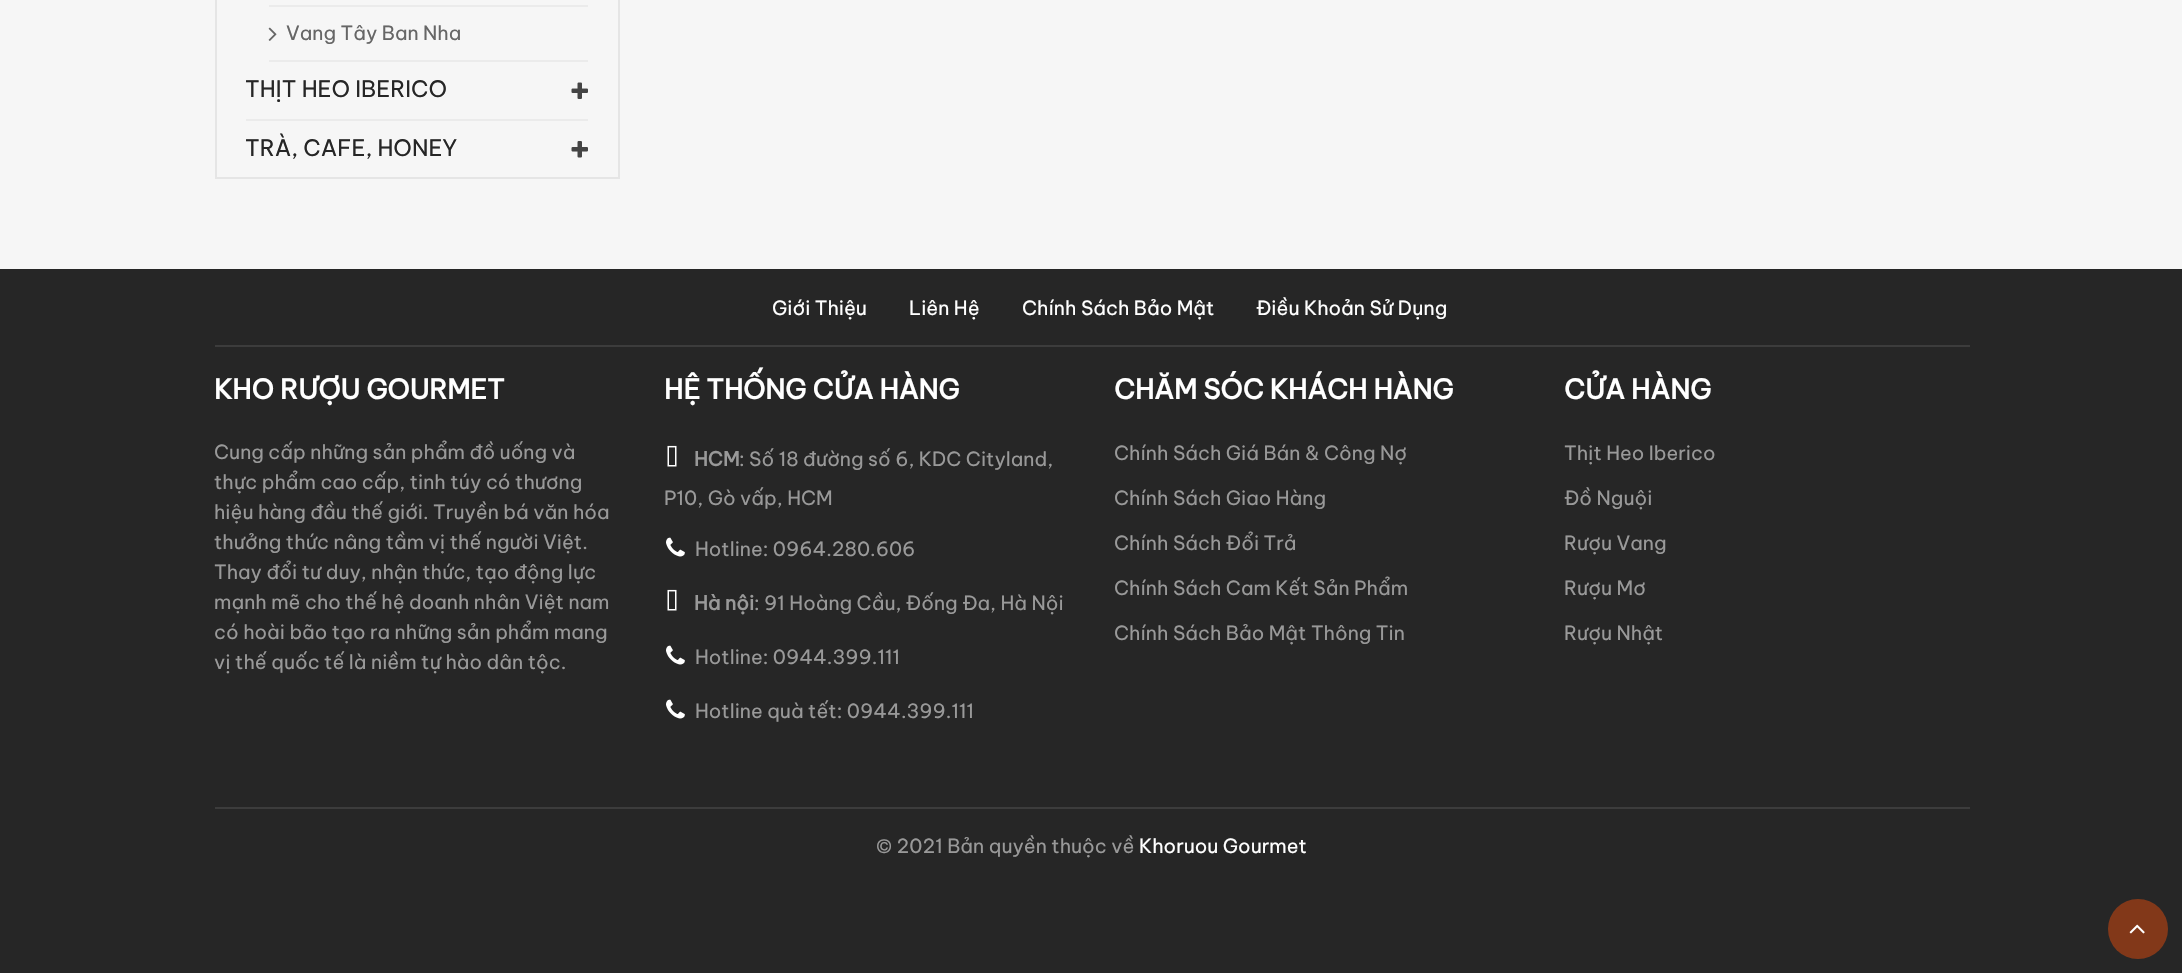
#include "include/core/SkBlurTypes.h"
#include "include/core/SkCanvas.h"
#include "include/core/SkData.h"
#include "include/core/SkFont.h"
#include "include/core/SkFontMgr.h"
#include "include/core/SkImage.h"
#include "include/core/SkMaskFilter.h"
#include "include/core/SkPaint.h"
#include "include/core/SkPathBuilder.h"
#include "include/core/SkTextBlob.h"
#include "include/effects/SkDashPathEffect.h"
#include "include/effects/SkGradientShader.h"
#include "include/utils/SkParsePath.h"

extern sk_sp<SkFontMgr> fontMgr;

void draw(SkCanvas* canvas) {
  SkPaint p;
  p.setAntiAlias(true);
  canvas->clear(SkColorSetRGB(246, 246, 246));
  p.setColor(SkColorSetRGB(229, 229, 229));
  canvas->drawRect(SkRect::MakeLTRB(618, 0, 620, 179), p);
  canvas->drawRect(SkRect::MakeLTRB(215, 177, 620, 179), p);
  canvas->drawRect(SkRect::MakeLTRB(215, 0, 217, 179), p);
  p.setColor(SkColorSetRGB(235, 235, 235));
  canvas->drawRect(SkRect::MakeLTRB(269, 5, 588, 7), p);
  canvas->drawRect(SkRect::MakeLTRB(269, 60, 588, 62), p);
  canvas->drawImageRect(SkImages::DeferredFromEncodedData(SkData::MakeFromFileName("images/1.png")), SkRect::MakeLTRB(268, 27, 277, 41), SkSamplingOptions());
  canvas->drawRect(SkRect::MakeLTRB(246, 119, 588, 121), p);
  canvas->drawImageRect(SkImages::DeferredFromEncodedData(SkData::MakeFromFileName("images/2.png")), SkRect::MakeLTRB(571, 82, 588, 99), SkSamplingOptions());
  canvas->drawImageRect(SkImages::DeferredFromEncodedData(SkData::MakeFromFileName("images/3.png")), SkRect::MakeLTRB(571, 141, 588, 158), SkSamplingOptions());
  p.setColor(SkColorSetRGB(38, 38, 38));
  canvas->drawRect(SkRect::MakeLTRB(0, 269, 2182, 973), p);
  p.setColor(SkColorSetRGB(60, 60, 60));
  canvas->drawRect(SkRect::MakeLTRB(215, 345, 1970, 347), p);
  canvas->drawImageRect(SkImages::DeferredFromEncodedData(SkData::MakeFromFileName("images/4.png")), SkRect::MakeLTRB(667, 445, 677, 467), SkSamplingOptions());
  canvas->drawImageRect(SkImages::DeferredFromEncodedData(SkData::MakeFromFileName("images/5.png")), SkRect::MakeLTRB(666, 537, 685, 557), SkSamplingOptions());
  canvas->drawImageRect(SkImages::DeferredFromEncodedData(SkData::MakeFromFileName("images/4.png")), SkRect::MakeLTRB(667, 589, 677, 611), SkSamplingOptions());
  canvas->drawImageRect(SkImages::DeferredFromEncodedData(SkData::MakeFromFileName("images/5.png")), SkRect::MakeLTRB(666, 645, 685, 665), SkSamplingOptions());
  canvas->drawImageRect(SkImages::DeferredFromEncodedData(SkData::MakeFromFileName("images/5.png")), SkRect::MakeLTRB(666, 699, 685, 719), SkSamplingOptions());
  canvas->drawRect(SkRect::MakeLTRB(215, 807, 1970, 809), p);
  p.setColor(SkColorSetRGB(130, 56, 25));
  canvas->drawCircle(2138, 929, 30, p);
  canvas->drawImageRect(SkImages::DeferredFromEncodedData(SkData::MakeFromFileName("images/6.png")), SkRect::MakeLTRB(2129, 924, 2145, 934), SkSamplingOptions());
  SkFont font1(fontMgr->matchFamilyStyle("Be Vietnam Pro", SkFontStyle::Normal()), 19.5f);
  font1.setSubpixel(true);
  p.setColor(SkColorSetRGB(102, 102, 102));
  canvas->drawString("Vang Tây Ban Nha", 286, 40, font1, p);
  SkFont font2(fontMgr->matchFamilyStyle("Be Vietnam Pro", SkFontStyle::Normal()), 22.5f);
  font2.setSubpixel(true);
  p.setColor(SkColorSetRGB(38, 38, 38));
  canvas->drawString("THỊT HEO IBERICO", 245, 97, font2, p);
  canvas->drawString("TRÀ, CAFE, HONEY", 245, 156, font2, p);
  p.setColor(SK_ColorWHITE);
  canvas->drawString("Giới Thiệu", 772, 315, font1, p);
  canvas->drawString("Liên Hệ", 909, 315, font1, p);
  canvas->drawString("Chính Sách Bảo Mật", 1022, 315, font1, p);
  canvas->drawString("Điều Khoản Sử Dụng", 1256, 315, font1, p);
  SkFont font3(fontMgr->matchFamilyStyle("Be Vietnam Pro", SkFontStyle::Bold()), 27);
  font3.setSubpixel(true);
  canvas->drawString("KHO RƯỢU GOURMET", 214, 399, font3, p);
  p.setColor(SkColorSetRGB(153, 153, 153));
  canvas->drawString("Cung cấp những sản phẩm đồ uống và", 214, 459, font1, p);
  canvas->drawString("thực phẩm cao cấp, tinh túy có thương", 214, 489, font1, p);
  canvas->drawString("hiệu hàng đầu thế giới. Truyền bá văn hóa", 214, 519, font1, p);
  canvas->drawString("thưởng thức nâng tầm vị thế người Việt.", 214, 549, font1, p);
  canvas->drawString("Thay đổi tư duy, nhận thức, tạo động lực", 214, 579, font1, p);
  canvas->drawString("mạnh mẽ cho thế hệ doanh nhân Việt nam", 214, 609, font1, p);
  canvas->drawString("có hoài bão tạo ra những sản phẩm mang", 214, 639, font1, p);
  canvas->drawString("vị thế quốc tế là niềm tự hào dân tộc.", 214, 669, font1, p);
  p.setColor(SK_ColorWHITE);
  canvas->drawString("HỆ THỐNG CỬA HÀNG", 664, 399, font3, p);
  SkFont font4(fontMgr->matchFamilyStyle("Be Vietnam Pro", SkFontStyle::Bold()), 19.5f);
  font4.setSubpixel(true);
  p.setColor(SkColorSetRGB(153, 153, 153));
  canvas->drawString("HCM", 694, 466, font4, p);
  canvas->drawString(": Số 18 đường số 6, KDC Cityland,", 739, 466, font1, p);
  canvas->drawString("P10, Gò vấp, HCM", 664, 505, font1, p);
  canvas->drawString("Hotline: 0964.280.606", 695, 556, font1, p);
  canvas->drawString("Hà nội", 694, 610, font4, p);
  canvas->drawString(": 91 Hoàng Cầu, Đống Đa, Hà Nội", 754, 610, font1, p);
  canvas->drawString("Hotline: 0944.399.111", 695, 664, font1, p);
  canvas->drawString("Hotline quà tết: 0944.399.111", 695, 718, font1, p);
  p.setColor(SK_ColorWHITE);
  canvas->drawString("CHĂM SÓC KHÁCH HÀNG", 1114, 399, font3, p);
  p.setColor(SkColorSetRGB(153, 153, 153));
  canvas->drawString("Chính Sách Giá Bán & Công Nợ", 1114, 460, font1, p);
  canvas->drawString("Chính Sách Giao Hàng", 1114, 505, font1, p);
  canvas->drawString("Chính Sách Đổi Trả", 1114, 550, font1, p);
  canvas->drawString("Chính Sách Cam Kết Sản Phẩm", 1114, 595, font1, p);
  canvas->drawString("Chính Sách Bảo Mật Thông Tin", 1114, 640, font1, p);
  p.setColor(SK_ColorWHITE);
  canvas->drawString("CỬA HÀNG", 1564, 399, font3, p);
  p.setColor(SkColorSetRGB(153, 153, 153));
  canvas->drawString("Thịt Heo Iberico", 1564, 460, font1, p);
  canvas->drawString("Đồ Nguội", 1564, 505, font1, p);
  canvas->drawString("Rượu Vang", 1564, 550, font1, p);
  canvas->drawString("Rượu Mơ", 1564, 595, font1, p);
  canvas->drawString("Rượu Nhật", 1564, 640, font1, p);
  canvas->drawString("© 2021 Bản quyền thuộc về", 876, 853, font1, p);
  p.setColor(SK_ColorWHITE);
  canvas->drawString("Khoruou Gourmet", 1139, 853, font1, p);
}
